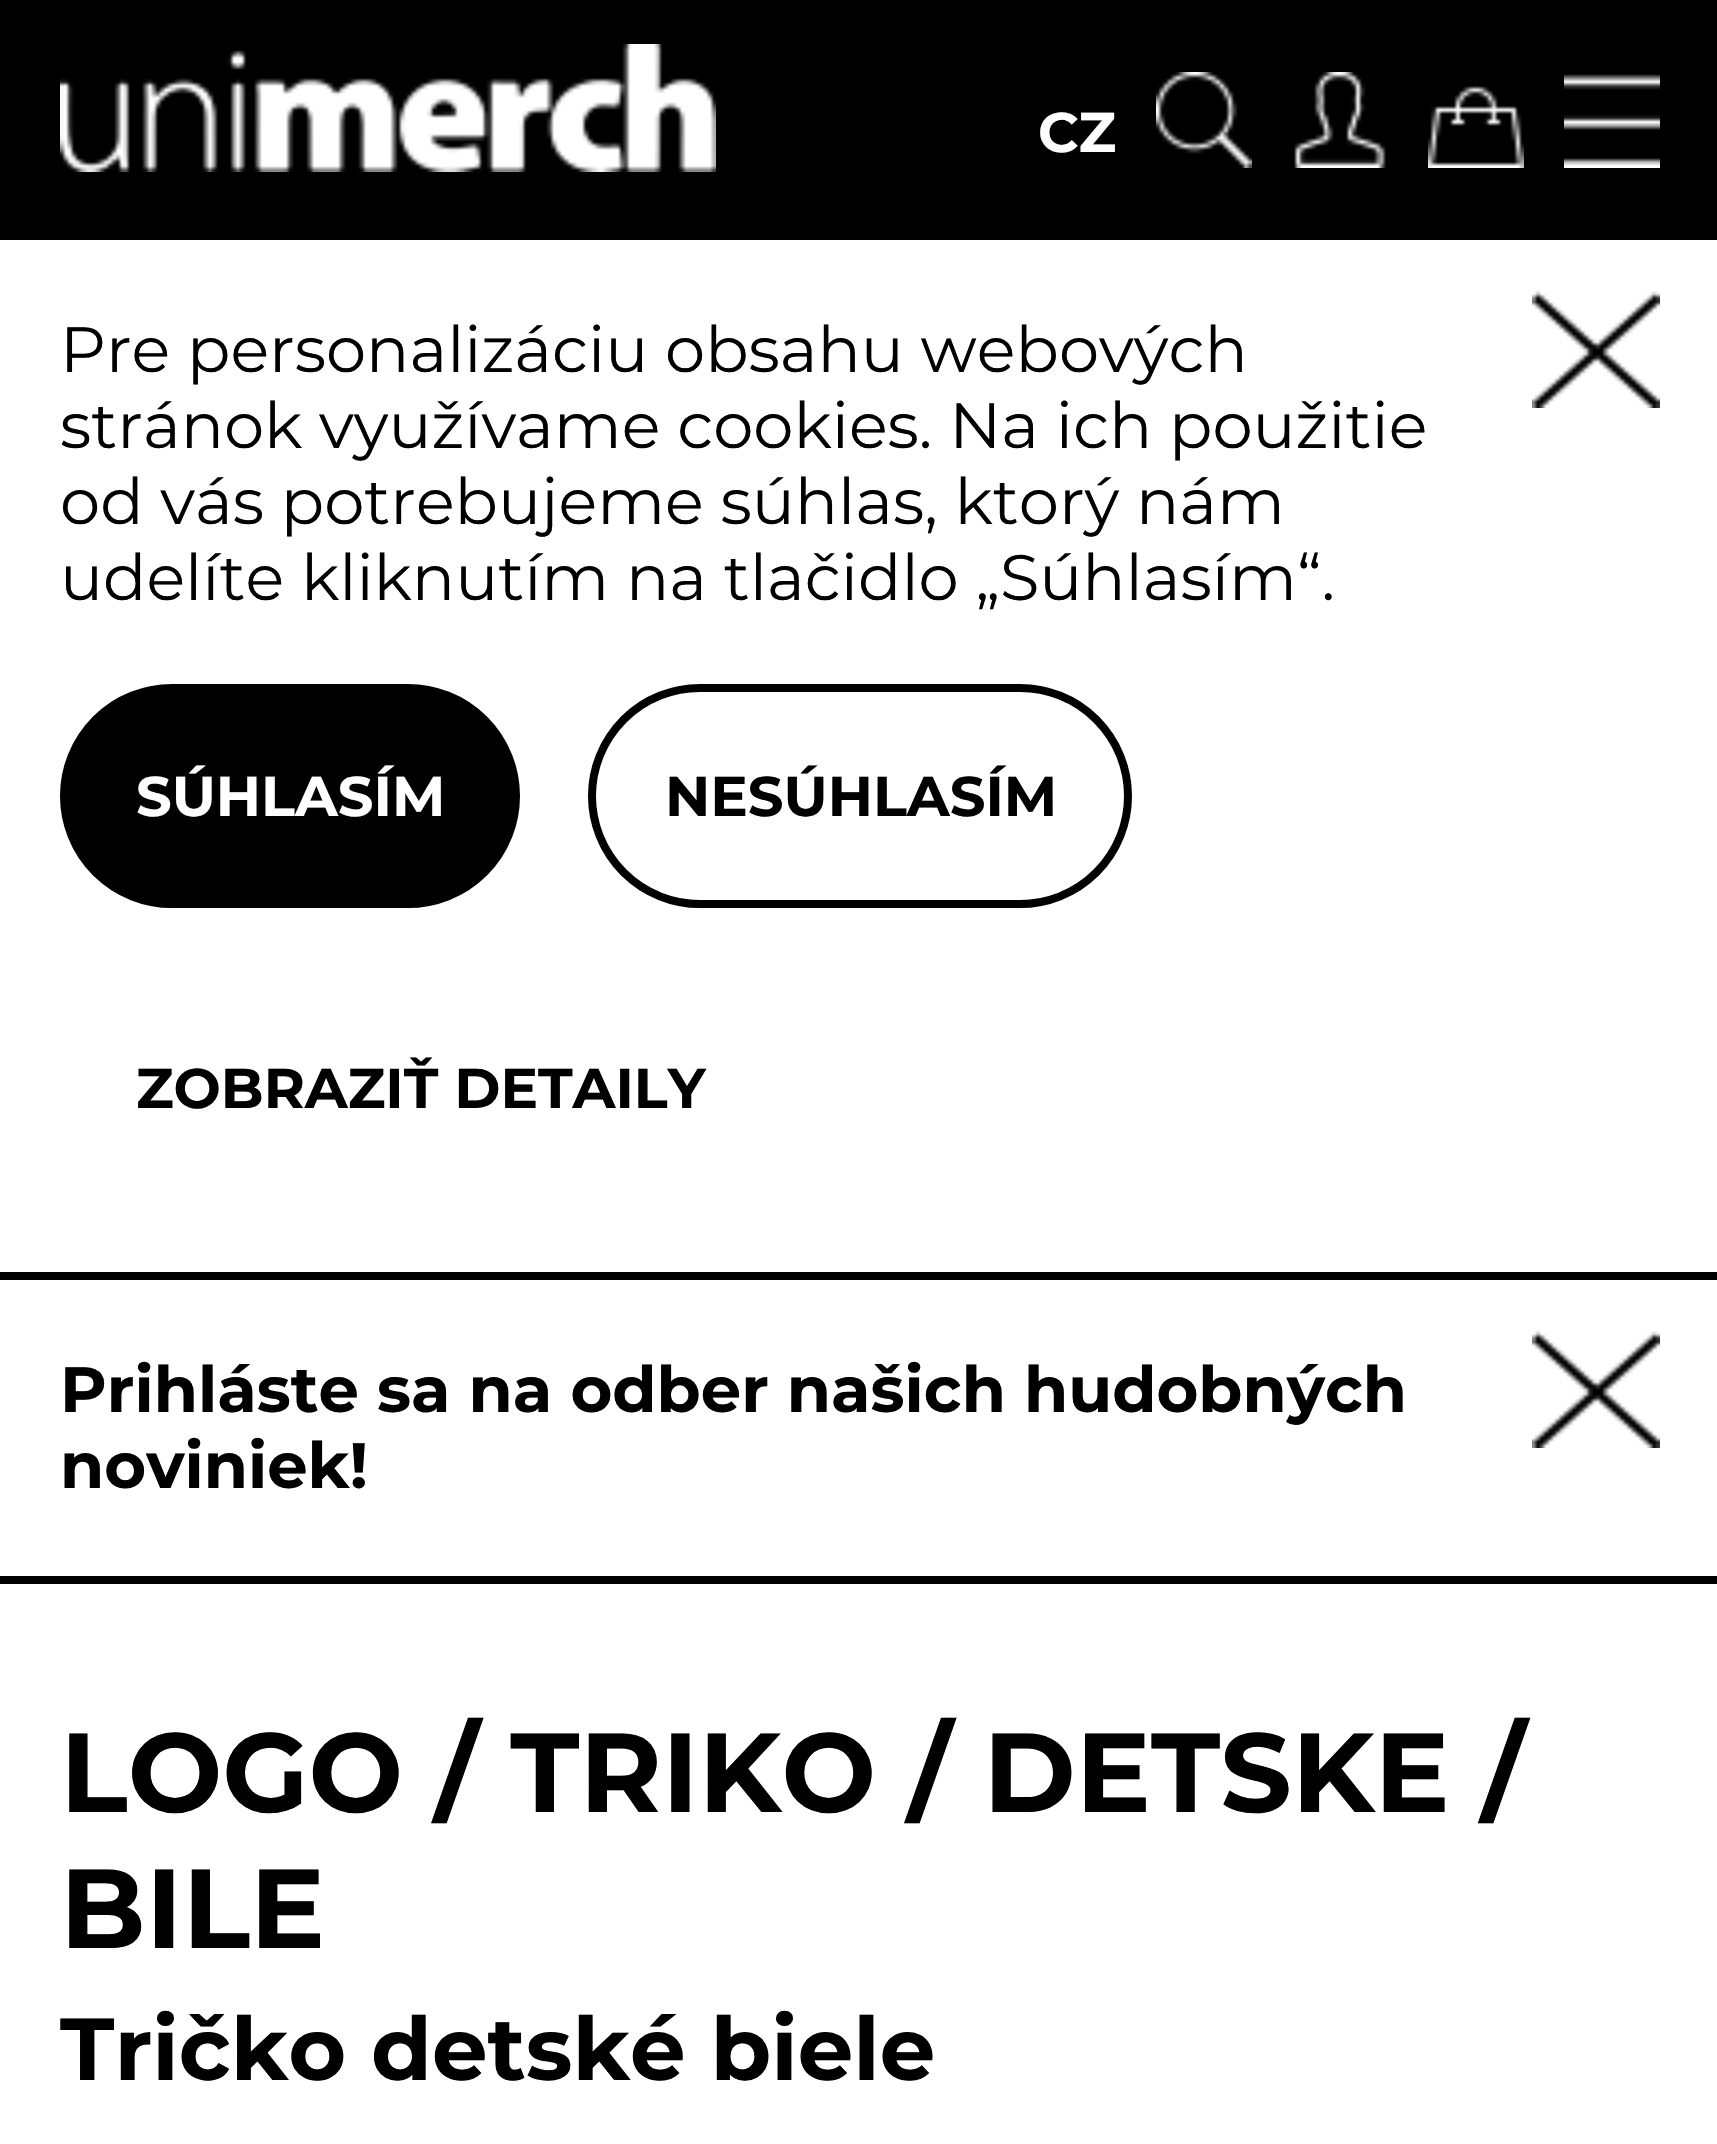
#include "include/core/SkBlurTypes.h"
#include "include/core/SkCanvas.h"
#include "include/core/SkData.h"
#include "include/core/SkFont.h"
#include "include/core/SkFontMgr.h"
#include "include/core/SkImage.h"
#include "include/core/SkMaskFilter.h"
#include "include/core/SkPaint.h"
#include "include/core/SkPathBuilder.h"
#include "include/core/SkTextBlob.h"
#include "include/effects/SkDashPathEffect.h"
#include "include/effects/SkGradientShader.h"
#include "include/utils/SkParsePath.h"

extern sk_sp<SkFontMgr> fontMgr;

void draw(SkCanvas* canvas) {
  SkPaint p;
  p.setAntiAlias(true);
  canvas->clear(SK_ColorWHITE);
  p.setColor(SK_ColorBLACK);
  canvas->drawRect(SkRect::MakeLTRB(0, 0, 1717, 240), p);
  canvas->drawImageRect(SkImages::DeferredFromEncodedData(SkData::MakeFromFileName("images/1.png")), SkRect::MakeLTRB(60, 44, 716, 172), SkSamplingOptions());
  canvas->drawImageRect(SkImages::DeferredFromEncodedData(SkData::MakeFromFileName("images/2.png")), SkRect::MakeLTRB(1156, 72, 1252, 168), SkSamplingOptions());
  canvas->drawImageRect(SkImages::DeferredFromEncodedData(SkData::MakeFromFileName("images/3.png")), SkRect::MakeLTRB(1294, 72, 1386, 168), SkSamplingOptions());
  canvas->drawImageRect(SkImages::DeferredFromEncodedData(SkData::MakeFromFileName("images/4.png")), SkRect::MakeLTRB(1428, 86, 1524, 168), SkSamplingOptions());
  canvas->drawImageRect(SkImages::DeferredFromEncodedData(SkData::MakeFromFileName("images/5.png")), SkRect::MakeLTRB(1564, 74, 1660, 168), SkSamplingOptions());
  canvas->drawRect(SkRect::MakeLTRB(0, 1272, 1717, 1280), p);
  canvas->drawImageRect(SkImages::DeferredFromEncodedData(SkData::MakeFromFileName("images/6.png")), SkRect::MakeLTRB(1532, 290, 1660, 408), SkSamplingOptions());
  canvas->drawRoundRect(SkRect::MakeLTRB(64, 688, 516, 904), 108, 108, p);
  p.setStyle(SkPaint::kStroke_Style);
  p.setStrokeWidth(8);
  canvas->drawRoundRect(SkRect::MakeLTRB(64, 688, 516, 904), 108, 108, p);
  canvas->drawRoundRect(SkRect::MakeLTRB(592, 688, 1128, 904), 108, 108, p);
  p.setStyle(SkPaint::kFill_Style);
  canvas->drawRect(SkRect::MakeLTRB(0, 1576, 1717, 1584), p);
  canvas->drawImageRect(SkImages::DeferredFromEncodedData(SkData::MakeFromFileName("images/6.png")), SkRect::MakeLTRB(1532, 1330, 1660, 1448), SkSamplingOptions());
  SkFont font1(fontMgr->matchFamilyStyle("Montserrat", SkFontStyle::Bold()), 56);
  font1.setSubpixel(true);
  p.setColor(SK_ColorWHITE);
  canvas->drawString("CZ", 1038, 152, font1, p);
  SkFont font2(fontMgr->matchFamilyStyle("Montserrat", SkFontStyle::Normal()), 64);
  font2.setSubpixel(true);
  p.setColor(SK_ColorBLACK);
  canvas->drawString("Pre personalizáciu obsahu webových", 60, 372, font2, p);
  canvas->drawString("stránok využívame cookies. Na ich použitie", 60, 448, font2, p);
  canvas->drawString("od vás potrebujeme súhlas, ktorý nám", 60, 524, font2, p);
  canvas->drawString("udelíte kliknutím na tlačidlo „Súhlasím“.", 60, 600, font2, p);
  p.setColor(SK_ColorWHITE);
  canvas->drawString("SÚHLASÍM", 136, 816, font1, p);
  p.setColor(SK_ColorBLACK);
  canvas->drawString("NESÚHLASÍM", 665, 816, font1, p);
  canvas->drawString("ZOBRAZIŤ DETAILY", 136, 1108, font1, p);
  SkFont font3(fontMgr->matchFamilyStyle("Montserrat", SkFontStyle::Bold()), 64);
  font3.setSubpixel(true);
  canvas->drawString("Prihláste sa na odber našich hudobných", 60, 1412, font3, p);
  canvas->drawString("noviniek!", 60, 1488, font3, p);
  SkFont font4(fontMgr->matchFamilyStyle("Montserrat", SkFontStyle::Bold()), 112);
  font4.setSubpixel(true);
  canvas->drawString("LOGO / TRIKO / DETSKE /", 60, 1812, font4, p);
  canvas->drawString("BILE", 60, 1948, font4, p);
  SkFont font5(fontMgr->matchFamilyStyle("Montserrat", SkFontStyle::Bold()), 88);
  font5.setSubpixel(true);
  canvas->drawString("Tričko detské biele", 60, 2080, font5, p);
}
